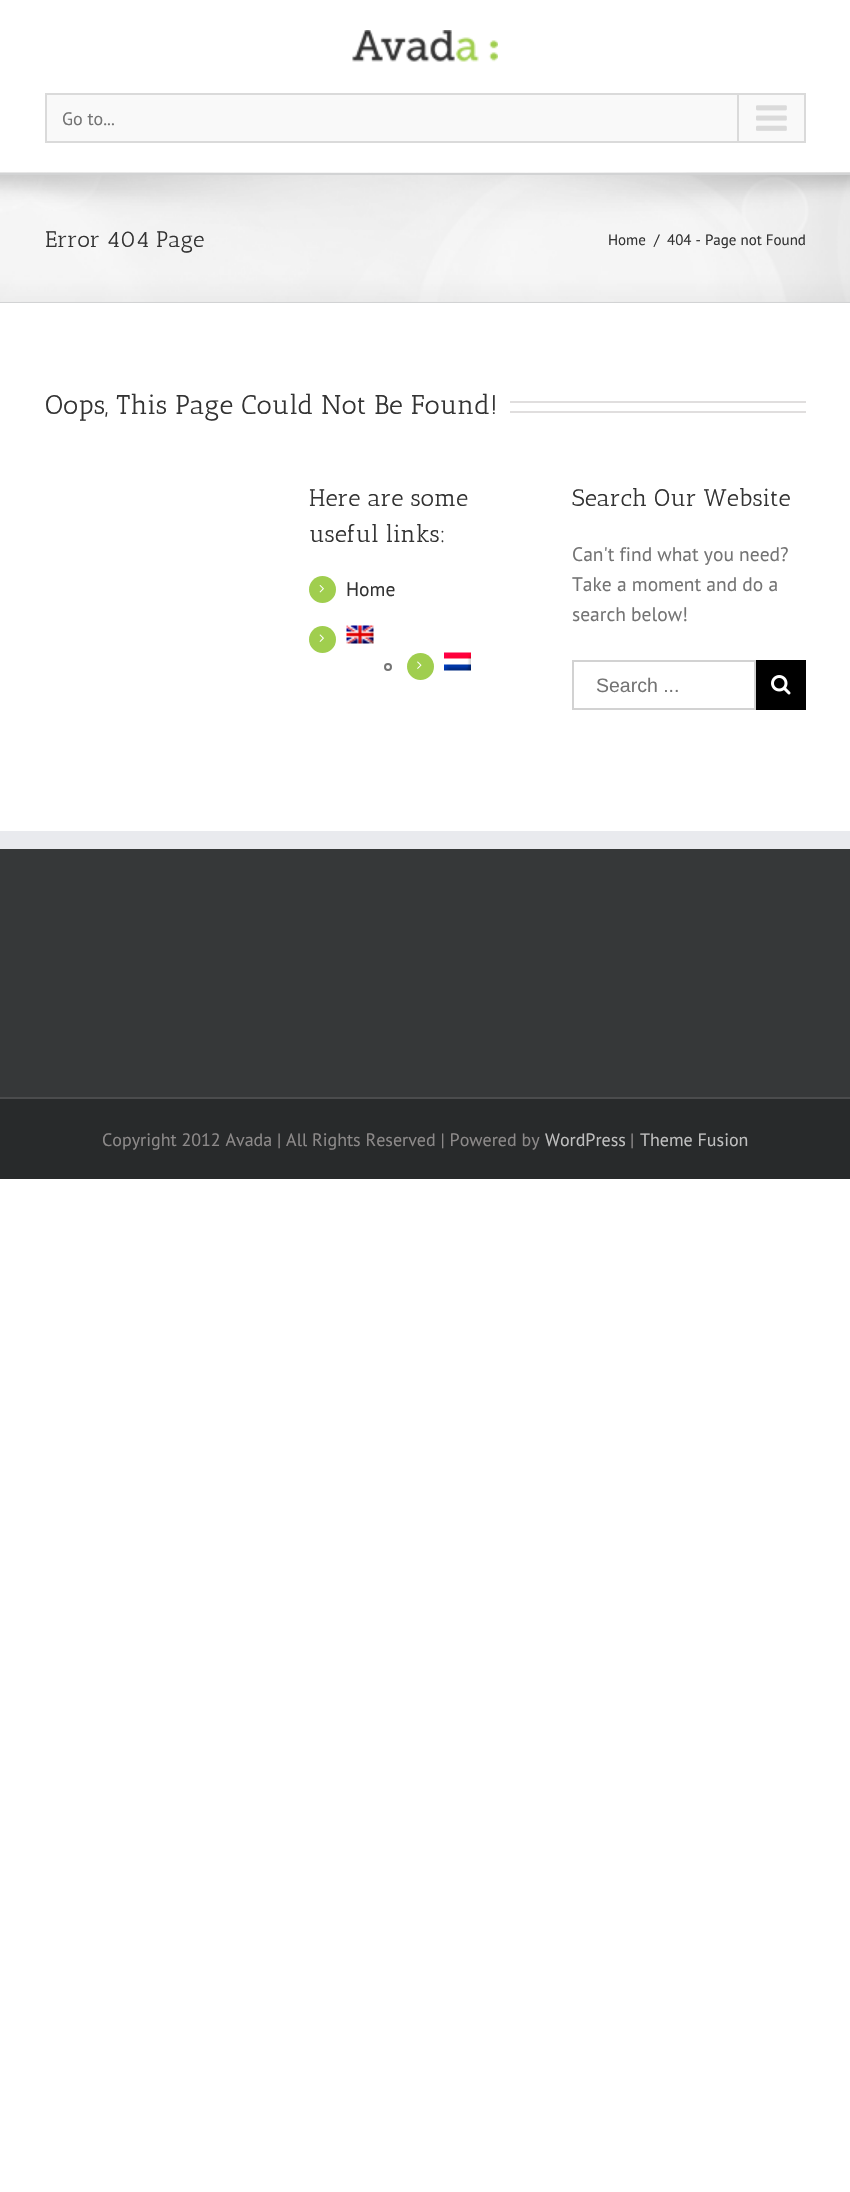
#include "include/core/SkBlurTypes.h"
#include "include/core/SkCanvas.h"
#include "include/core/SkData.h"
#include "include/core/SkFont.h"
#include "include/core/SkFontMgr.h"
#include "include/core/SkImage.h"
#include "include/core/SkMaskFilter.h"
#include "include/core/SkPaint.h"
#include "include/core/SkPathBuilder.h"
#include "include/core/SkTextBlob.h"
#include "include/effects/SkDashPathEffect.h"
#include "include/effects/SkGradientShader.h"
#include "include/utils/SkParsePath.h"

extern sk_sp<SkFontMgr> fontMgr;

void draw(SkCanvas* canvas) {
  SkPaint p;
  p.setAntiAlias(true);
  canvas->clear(SK_ColorWHITE);
  canvas->drawImageRect(SkImages::DeferredFromEncodedData(SkData::MakeFromFileName("images/1.png")), SkRect::MakeLTRB(352, 30, 498, 62), SkSamplingOptions());
  p.setColor(SkColorSetRGB(249, 249, 249));
  canvas->drawRect(SkRect::MakeLTRB(46, 94, 805, 142), p);
  p.setStyle(SkPaint::kStroke_Style);
  p.setStrokeWidth(2);
  p.setColor(SkColorSetRGB(218, 218, 218));
  canvas->drawRect(SkRect::MakeLTRB(46, 94, 805, 142), p);
  p.setStyle(SkPaint::kFill_Style);
  canvas->drawRect(SkRect::MakeLTRB(737, 95, 739, 141), p);
  canvas->drawImageRect(SkImages::DeferredFromEncodedData(SkData::MakeFromFileName("images/2.png")), SkRect::MakeLTRB(756, 105, 787, 131), SkSamplingOptions());
  p.setColor(SkColorSetRGB(246, 246, 246));
  canvas->drawRect(SkRect::MakeLTRB(0, 175, 850, 302), p);
  canvas->drawImageRect(SkImages::DeferredFromEncodedData(SkData::MakeFromFileName("images/3.png")), SkRect::MakeLTRB(0, 172, 850, 302), SkSamplingOptions());
  p.setColor(SkColorSetRGB(210, 211, 212));
  canvas->drawRect(SkRect::MakeLTRB(0, 173, 850, 175), p);
  canvas->drawRect(SkRect::MakeLTRB(0, 302, 850, 303), p);
  p.setColor(SkColorSetRGB(224, 222, 222));
  canvas->drawRect(SkRect::MakeLTRB(510, 401, 806, 403), p);
  canvas->drawRect(SkRect::MakeLTRB(510, 411, 806, 413), p);
  p.setColor(SkColorSetRGB(160, 206, 78));
  canvas->drawCircle(322.5f, 589.5f, 13.5f, p);
  canvas->drawImageRect(SkImages::DeferredFromEncodedData(SkData::MakeFromFileName("images/4.png")), SkRect::MakeLTRB(319, 585, 324, 593), SkSamplingOptions());
  canvas->drawCircle(322.5f, 639.5f, 13.5f, p);
  canvas->drawImageRect(SkImages::DeferredFromEncodedData(SkData::MakeFromFileName("images/5.png")), SkRect::MakeLTRB(319, 634, 324, 642), SkSamplingOptions());
  canvas->drawImageRect(SkImages::DeferredFromEncodedData(SkData::MakeFromFileName("images/6.png")), SkRect::MakeLTRB(346, 625, 374, 644), SkSamplingOptions());
  p.setStyle(SkPaint::kStroke_Style);
  p.setColor(SkColorSetRGB(116, 116, 116));
  canvas->drawCircle(388, 667, 3, p);
  p.setStyle(SkPaint::kFill_Style);
  p.setColor(SkColorSetRGB(160, 206, 78));
  canvas->drawCircle(420.5f, 666.5f, 13.5f, p);
  canvas->drawImageRect(SkImages::DeferredFromEncodedData(SkData::MakeFromFileName("images/7.png")), SkRect::MakeLTRB(417, 661, 422, 669), SkSamplingOptions());
  canvas->drawImageRect(SkImages::DeferredFromEncodedData(SkData::MakeFromFileName("images/8.png")), SkRect::MakeLTRB(444, 652, 471, 671), SkSamplingOptions());
  p.setStyle(SkPaint::kStroke_Style);
  p.setColor(SkColorSetRGB(210, 210, 210));
  canvas->drawRect(SkRect::MakeLTRB(573, 661, 755, 709), p);
  p.setStyle(SkPaint::kFill_Style);
  p.setColor(SK_ColorBLACK);
  canvas->drawRect(SkRect::MakeLTRB(756, 660, 806, 710), p);
  canvas->drawImageRect(SkImages::DeferredFromEncodedData(SkData::MakeFromFileName("images/9.png")), SkRect::MakeLTRB(771, 675, 791, 695), SkSamplingOptions());
  p.setColor(SkColorSetRGB(54, 56, 57));
  canvas->drawRect(SkRect::MakeLTRB(0, 849, 850, 1097), p);
  p.setColor(SkColorSetRGB(233, 234, 238));
  canvas->drawRect(SkRect::MakeLTRB(0, 831, 850, 849), p);
  p.setColor(SkColorSetRGB(40, 42, 43));
  canvas->drawRect(SkRect::MakeLTRB(0, 1099, 850, 1179), p);
  p.setColor(SkColorSetRGB(75, 76, 77));
  canvas->drawRect(SkRect::MakeLTRB(0, 1097, 850, 1099), p);
  SkFont font1(fontMgr->matchFamilyStyle("PT Sans", SkFontStyle::Normal()), 18);
  font1.setSubpixel(true);
  p.setColor(SkColorSetRGB(116, 116, 116));
  canvas->drawString("Go to...", 62, 125, font1, p);
  SkFont font2(fontMgr->matchFamilyStyle("Antic Slab", SkFontStyle::Normal()), 22.5f);
  font2.setSubpixel(true);
  p.setColor(SkColorSetRGB(51, 51, 51));
  canvas->drawString("Error 404 Page", 45, 247, font2, p);
  SkFont font3(fontMgr->matchFamilyStyle("PT Sans", SkFontStyle::Normal()), 15);
  font3.setSubpixel(true);
  canvas->drawString("Home", 608, 245, font3, p);
  canvas->drawString("/", 654, 245, font3, p);
  canvas->drawString("404 - Page not Found", 667, 245, font3, p);
  SkFont font4(fontMgr->matchFamilyStyle("Antic Slab", SkFontStyle::Normal()), 27);
  font4.setSubpixel(true);
  canvas->drawString("Oops, This Page Could Not Be Found!", 45, 414, font4, p);
  SkFont font5(fontMgr->matchFamilyStyle("Antic Slab", SkFontStyle::Normal()), 24);
  font5.setSubpixel(true);
  canvas->drawString("Here are some", 309, 506, font5, p);
  canvas->drawString("useful links:", 309, 542, font5, p);
  SkFont font6(fontMgr->matchFamilyStyle("PT Sans", SkFontStyle::Normal()), 19.5f);
  font6.setSubpixel(true);
  canvas->drawString("Home", 346, 596, font6, p);
  canvas->drawString("Search Our Website", 572, 506, font5, p);
  p.setColor(SkColorSetRGB(116, 116, 116));
  canvas->drawString("Can't find what you need?", 572, 561, font6, p);
  canvas->drawString("Take a moment and do a", 572, 591, font6, p);
  canvas->drawString("search below!", 572, 621, font6, p);
  SkFont font7(fontMgr->matchFamilyStyle("Liberation Sans", SkFontStyle::Normal()), 19.5f);
  font7.setSubpixel(true);
  canvas->drawString("Search ...", 596, 692, font7, p);
  p.setColor(SkColorSetRGB(140, 137, 137));
  canvas->drawString("Copyright 2012 Avada | All Rights Reserved | Powered by", 102, 1146, font1, p);
  p.setColor(SkColorSetRGB(191, 191, 191));
  canvas->drawString("WordPress", 545, 1146, font1, p);
  p.setColor(SkColorSetRGB(140, 137, 137));
  canvas->drawString("|", 630, 1146, font1, p);
  p.setColor(SkColorSetRGB(191, 191, 191));
  canvas->drawString("Theme Fusion", 640, 1146, font1, p);
}
